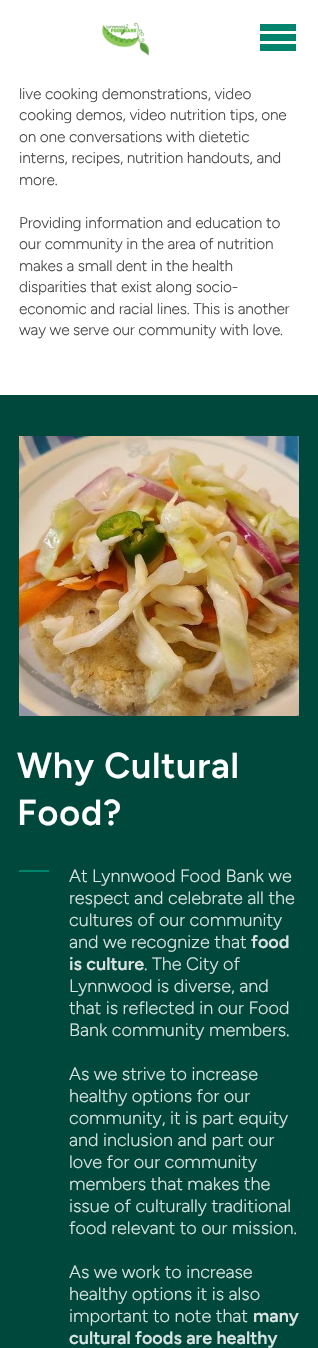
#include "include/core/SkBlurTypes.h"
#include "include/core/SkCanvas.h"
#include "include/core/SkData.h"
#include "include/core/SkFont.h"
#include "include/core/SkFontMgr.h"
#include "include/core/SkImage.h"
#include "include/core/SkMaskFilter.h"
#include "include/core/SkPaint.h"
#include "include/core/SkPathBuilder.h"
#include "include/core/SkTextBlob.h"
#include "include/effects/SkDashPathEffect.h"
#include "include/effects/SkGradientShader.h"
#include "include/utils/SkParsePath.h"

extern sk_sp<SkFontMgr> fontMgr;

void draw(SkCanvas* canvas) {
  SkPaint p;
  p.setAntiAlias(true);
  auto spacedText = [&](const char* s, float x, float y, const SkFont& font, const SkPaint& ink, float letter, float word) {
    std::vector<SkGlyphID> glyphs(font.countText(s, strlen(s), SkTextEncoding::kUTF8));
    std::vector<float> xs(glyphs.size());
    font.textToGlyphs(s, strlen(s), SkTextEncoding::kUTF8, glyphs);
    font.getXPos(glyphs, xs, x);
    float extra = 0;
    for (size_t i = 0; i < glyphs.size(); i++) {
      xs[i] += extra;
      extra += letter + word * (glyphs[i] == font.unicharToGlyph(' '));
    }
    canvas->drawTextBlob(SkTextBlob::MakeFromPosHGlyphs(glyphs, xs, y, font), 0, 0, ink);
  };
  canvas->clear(SK_ColorWHITE);
  canvas->drawImageRect(SkImages::DeferredFromEncodedData(SkData::MakeFromFileName("images/1.png")), SkRect::MakeLTRB(102, 22, 149, 56), SkSamplingOptions());
  p.setColor(SkColorSetRGB(0, 132, 110));
  canvas->drawRect(SkRect::MakeLTRB(260, 24, 296, 31), p);
  canvas->drawRect(SkRect::MakeLTRB(260, 34, 296, 41), p);
  canvas->drawRect(SkRect::MakeLTRB(260, 44, 296, 51), p);
  p.setColor(SkColorSetRGB(0, 72, 59));
  canvas->drawRect(SkRect::MakeLTRB(0, 395, 318, 1348), p);
  canvas->drawImageRect(SkImages::DeferredFromEncodedData(SkData::MakeFromFileName("images/2.png")), SkRect::MakeLTRB(19, 436, 299, 716), SkSamplingOptions());
  p.setColor(SkColorSetRGB(0, 132, 110));
  canvas->drawRect(SkRect::MakeLTRB(19, 870, 49, 872), p);
  SkFont font1(fontMgr->matchFamilyStyle("Figtree", SkFontStyle(300, SkFontStyle::kNormal_Width, SkFontStyle::kUpright_Slant)), 15.4f);
  font1.setSubpixel(true);
  p.setColor(SkColorSetRGB(73, 73, 73));
  spacedText("live cooking demonstrations, video", 19, 99, font1, p, -0.15f, 0);
  spacedText("cooking demos, video nutrition tips, one", 19, 120, font1, p, -0.15f, 0);
  spacedText("on one conversations with dietetic", 19, 142, font1, p, -0.15f, 0);
  spacedText("interns, recipes, nutrition handouts, and", 19, 163, font1, p, -0.15f, 0);
  spacedText("more.", 19, 185, font1, p, -0.15f, 0);
  spacedText("Providing information and education to", 19, 228, font1, p, -0.15f, 0);
  spacedText("our community in the area of nutrition", 19, 249, font1, p, -0.15f, 0);
  spacedText("makes a small dent in the health", 19, 271, font1, p, -0.15f, 0);
  spacedText("disparities that exist along socio-", 19, 292, font1, p, -0.15f, 0);
  spacedText("economic and racial lines. This is another", 19, 314, font1, p, -0.15f, 0);
  spacedText("way we serve our community with love.", 19, 335, font1, p, -0.15f, 0);
  SkFont font2(fontMgr->matchFamilyStyle("Figtree", SkFontStyle(600, SkFontStyle::kNormal_Width, SkFontStyle::kUpright_Slant)), 36);
  font2.setSubpixel(true);
  p.setColor(SK_ColorWHITE);
  spacedText("Why Cultural", 17, 778, font2, p, 0.75f, 0);
  spacedText("Food?", 17, 825, font2, p, 0.75f, 0);
  SkFont font3(fontMgr->matchFamilyStyle("Figtree", SkFontStyle(300, SkFontStyle::kNormal_Width, SkFontStyle::kUpright_Slant)), 18);
  font3.setSubpixel(true);
  p.setColor(SkColorSetRGB(217, 228, 226));
  canvas->drawString("At Lynnwood Food Bank we", 69, 882, font3, p);
  canvas->drawString("respect and celebrate all the", 69, 904, font3, p);
  canvas->drawString("cultures of our community", 69, 926, font3, p);
  canvas->drawString("and we recognize that", 69, 948, font3, p);
  SkFont font4(fontMgr->matchFamilyStyle("Figtree", SkFontStyle(600, SkFontStyle::kNormal_Width, SkFontStyle::kUpright_Slant)), 18);
  font4.setSubpixel(true);
  canvas->drawString("food", 251, 948, font4, p);
  canvas->drawString("is culture", 69, 970, font4, p);
  canvas->drawString(". The City of", 144, 970, font3, p);
  canvas->drawString("Lynnwood is diverse, and", 69, 992, font3, p);
  canvas->drawString("that is reflected in our Food", 69, 1014, font3, p);
  canvas->drawString("Bank community members.", 69, 1036, font3, p);
  canvas->drawString("As we strive to increase", 69, 1080, font3, p);
  canvas->drawString("healthy options for our", 69, 1102, font3, p);
  canvas->drawString("community, it is part equity", 69, 1124, font3, p);
  canvas->drawString("and inclusion and part our", 69, 1146, font3, p);
  canvas->drawString("love for our community", 69, 1168, font3, p);
  canvas->drawString("members that makes the", 69, 1190, font3, p);
  canvas->drawString("issue of culturally traditional", 69, 1212, font3, p);
  canvas->drawString("food relevant to our mission.", 69, 1234, font3, p);
  canvas->drawString("As we work to increase", 69, 1278, font3, p);
  canvas->drawString("healthy options it is also", 69, 1300, font3, p);
  canvas->drawString("important to note that", 69, 1322, font3, p);
  canvas->drawString("many", 253, 1322, font4, p);
  canvas->drawString("cultural foods are healthy", 69, 1344, font4, p);
}
